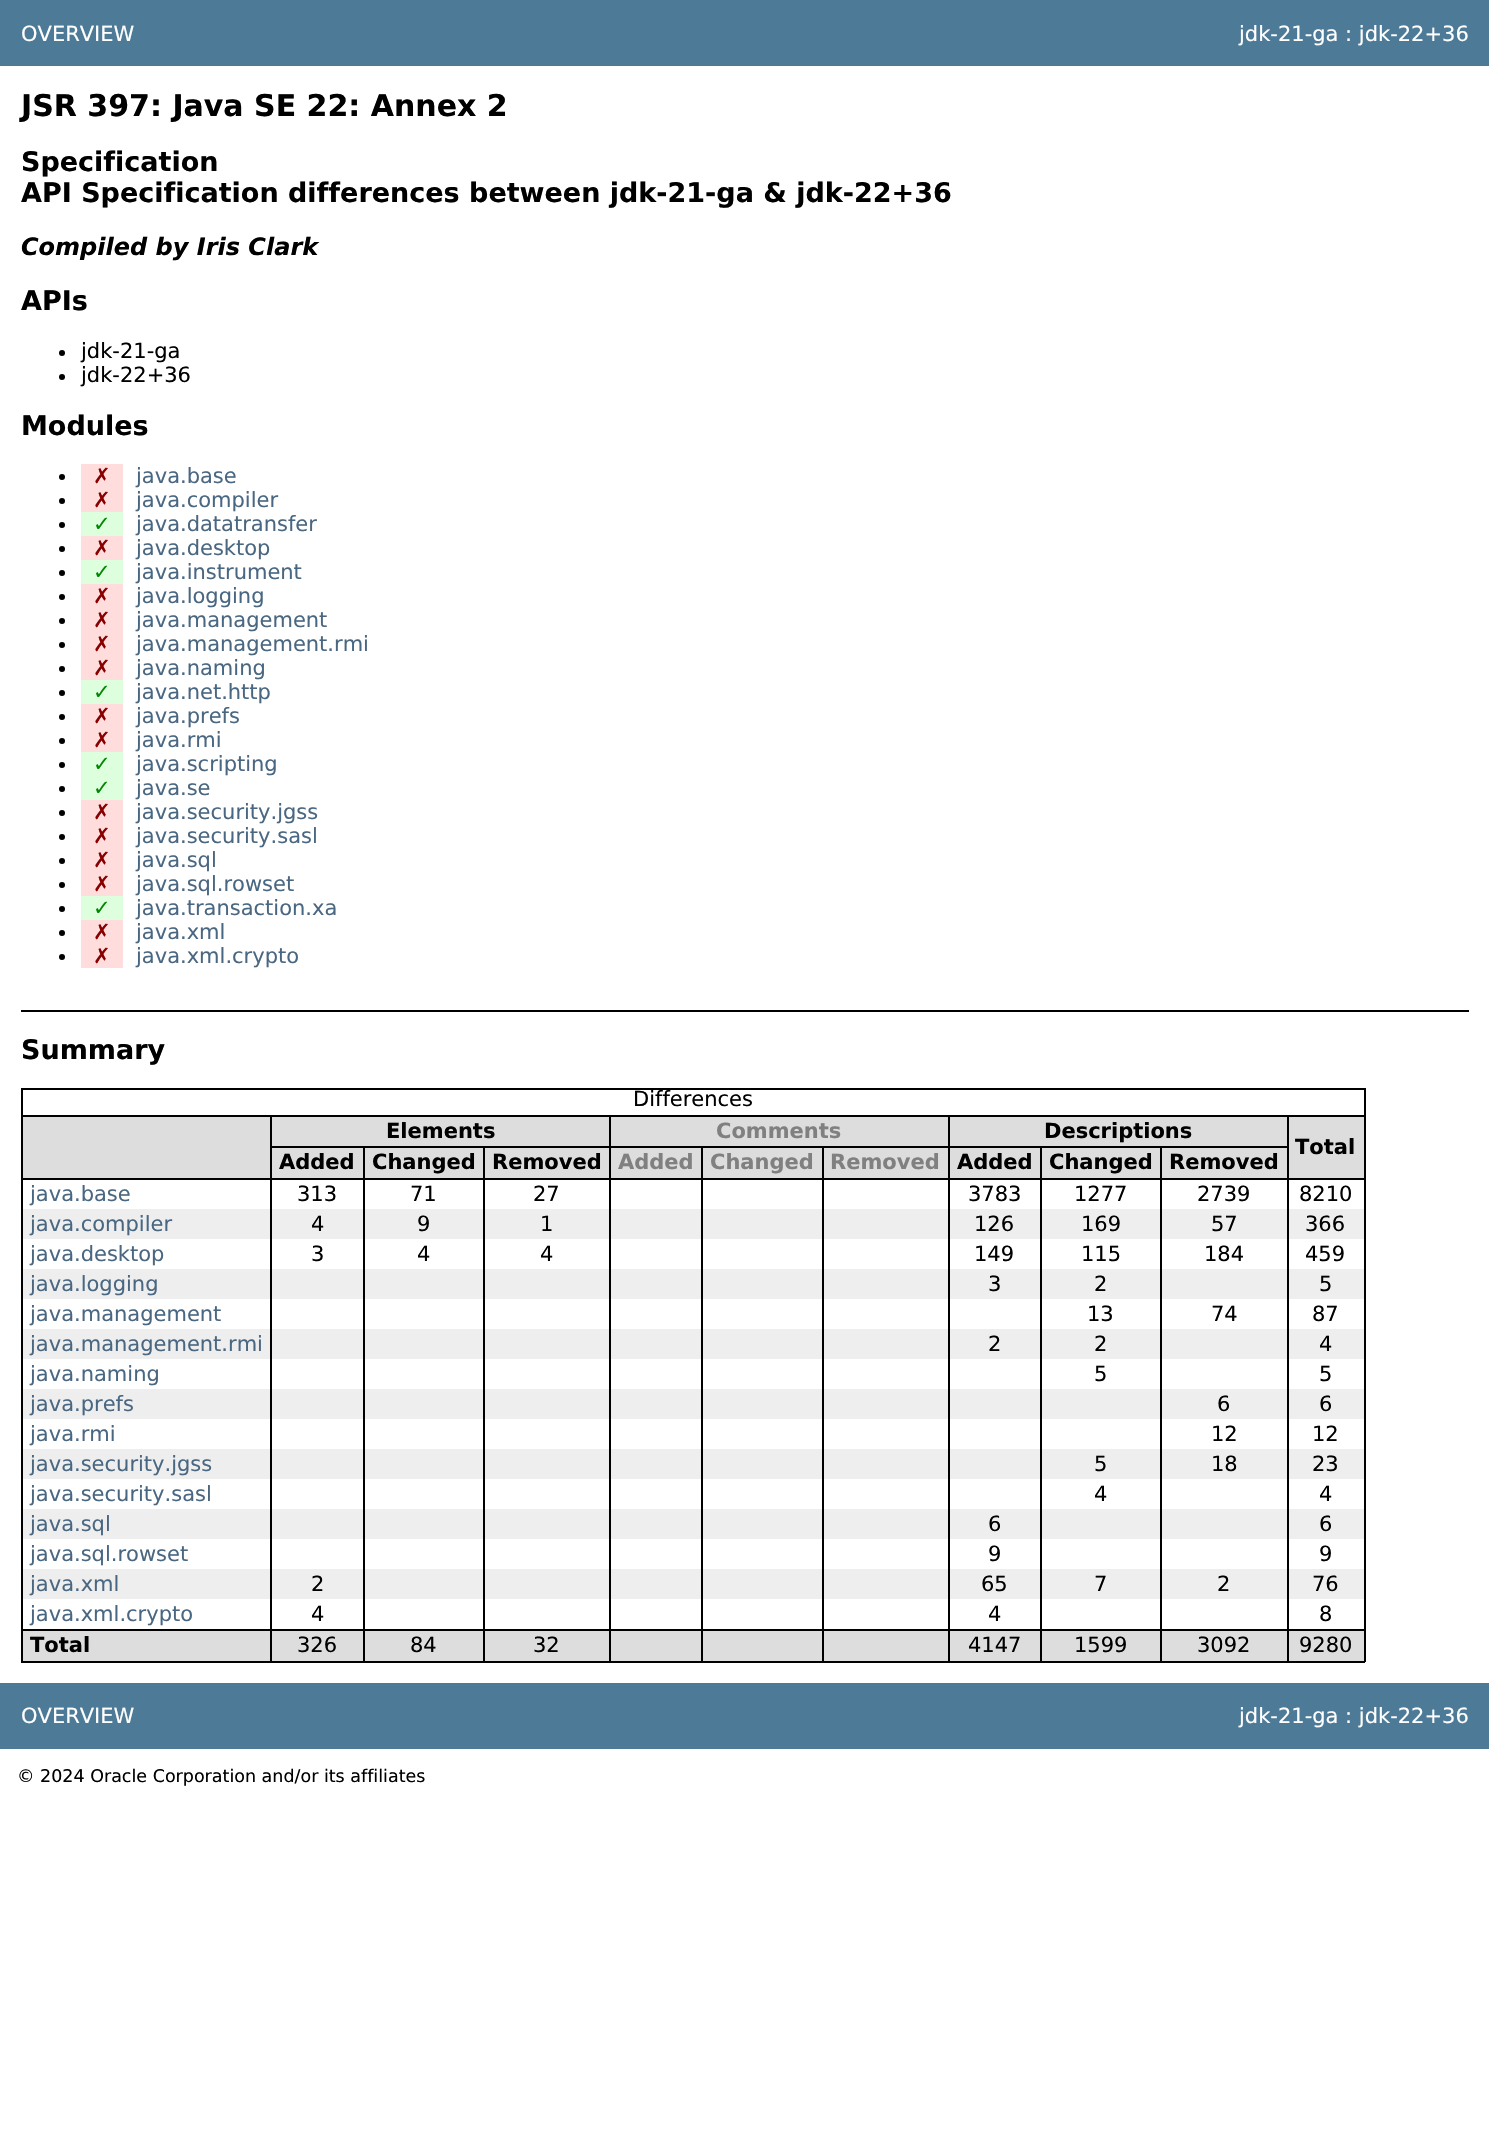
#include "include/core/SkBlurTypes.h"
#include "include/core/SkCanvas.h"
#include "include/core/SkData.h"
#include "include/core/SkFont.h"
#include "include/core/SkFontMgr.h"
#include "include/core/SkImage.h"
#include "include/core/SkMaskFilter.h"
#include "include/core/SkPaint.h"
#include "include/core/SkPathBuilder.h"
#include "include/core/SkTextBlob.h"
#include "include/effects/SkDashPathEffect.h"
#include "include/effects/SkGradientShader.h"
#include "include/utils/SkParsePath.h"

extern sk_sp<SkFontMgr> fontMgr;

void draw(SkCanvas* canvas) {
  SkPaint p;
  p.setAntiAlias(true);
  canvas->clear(SK_ColorWHITE);
  p.setColor(SkColorSetRGB(77, 122, 151));
  canvas->drawRect(SkRect::MakeLTRB(0, 0, 1489, 66), p);
  p.setColor(SK_ColorBLACK);
  canvas->drawCircle(62, 353, 3, p);
  canvas->drawCircle(62, 377, 3, p);
  canvas->drawCircle(62, 477, 3, p);
  p.setColor(SkColorSetRGB(255, 221, 221));
  canvas->drawRect(SkRect::MakeLTRB(81, 464, 123, 512), p);
  p.setColor(SK_ColorBLACK);
  canvas->drawCircle(62, 501, 3, p);
  canvas->drawCircle(62, 525, 3, p);
  p.setColor(SkColorSetRGB(221, 255, 221));
  canvas->drawRect(SkRect::MakeLTRB(81, 512, 123, 536), p);
  p.setColor(SK_ColorBLACK);
  canvas->drawCircle(62, 549, 3, p);
  p.setColor(SkColorSetRGB(255, 221, 221));
  canvas->drawRect(SkRect::MakeLTRB(81, 536, 123, 560), p);
  p.setColor(SK_ColorBLACK);
  canvas->drawCircle(62, 573, 3, p);
  p.setColor(SkColorSetRGB(221, 255, 221));
  canvas->drawRect(SkRect::MakeLTRB(81, 560, 123, 584), p);
  p.setColor(SK_ColorBLACK);
  canvas->drawCircle(62, 597, 3, p);
  p.setColor(SkColorSetRGB(255, 221, 221));
  canvas->drawRect(SkRect::MakeLTRB(81, 584, 123, 680), p);
  p.setColor(SK_ColorBLACK);
  canvas->drawCircle(62, 621, 3, p);
  canvas->drawCircle(62, 645, 3, p);
  canvas->drawCircle(62, 669, 3, p);
  canvas->drawCircle(62, 693, 3, p);
  p.setColor(SkColorSetRGB(221, 255, 221));
  canvas->drawRect(SkRect::MakeLTRB(81, 680, 123, 704), p);
  p.setColor(SK_ColorBLACK);
  canvas->drawCircle(62, 717, 3, p);
  p.setColor(SkColorSetRGB(255, 221, 221));
  canvas->drawRect(SkRect::MakeLTRB(81, 704, 123, 752), p);
  p.setColor(SK_ColorBLACK);
  canvas->drawCircle(62, 741, 3, p);
  canvas->drawCircle(62, 765, 3, p);
  p.setColor(SkColorSetRGB(221, 255, 221));
  canvas->drawRect(SkRect::MakeLTRB(81, 752, 123, 800), p);
  p.setColor(SK_ColorBLACK);
  canvas->drawCircle(62, 789, 3, p);
  canvas->drawCircle(62, 813, 3, p);
  p.setColor(SkColorSetRGB(255, 221, 221));
  canvas->drawRect(SkRect::MakeLTRB(81, 800, 123, 896), p);
  p.setColor(SK_ColorBLACK);
  canvas->drawCircle(62, 837, 3, p);
  canvas->drawCircle(62, 861, 3, p);
  canvas->drawCircle(62, 885, 3, p);
  canvas->drawCircle(62, 909, 3, p);
  p.setColor(SkColorSetRGB(221, 255, 221));
  canvas->drawRect(SkRect::MakeLTRB(81, 896, 123, 920), p);
  p.setColor(SK_ColorBLACK);
  canvas->drawCircle(62, 933, 3, p);
  p.setColor(SkColorSetRGB(255, 221, 221));
  canvas->drawRect(SkRect::MakeLTRB(81, 920, 123, 968), p);
  p.setColor(SK_ColorBLACK);
  canvas->drawCircle(62, 957, 3, p);
  canvas->drawRect(SkRect::MakeLTRB(21, 1010, 1469, 1012), p);
  canvas->drawRect(SkRect::MakeLTRB(21, 1088, 1365, 1090), p);
  canvas->drawRect(SkRect::MakeLTRB(1364, 1088, 1366, 1662), p);
  canvas->drawRect(SkRect::MakeLTRB(21, 1661, 1365, 1663), p);
  canvas->drawRect(SkRect::MakeLTRB(21, 1088, 23, 1662), p);
  p.setColor(SkColorSetRGB(221, 221, 221));
  canvas->drawRect(SkRect::MakeLTRB(23, 1117, 1364, 1178), p);
  p.setColor(SK_ColorBLACK);
  canvas->drawRect(SkRect::MakeLTRB(21, 1115, 1365, 1117), p);
  canvas->drawRect(SkRect::MakeLTRB(1160, 1146, 1289, 1148), p);
  canvas->drawRect(SkRect::MakeLTRB(21, 1178, 1365, 1180), p);
  p.setColor(SkColorSetRGB(238, 238, 238));
  canvas->drawRect(SkRect::MakeLTRB(23, 1209, 1364, 1239), p);
  canvas->drawRect(SkRect::MakeLTRB(23, 1269, 1364, 1299), p);
  canvas->drawRect(SkRect::MakeLTRB(23, 1329, 1364, 1359), p);
  canvas->drawRect(SkRect::MakeLTRB(23, 1389, 1364, 1419), p);
  canvas->drawRect(SkRect::MakeLTRB(23, 1449, 1364, 1479), p);
  canvas->drawRect(SkRect::MakeLTRB(23, 1509, 1364, 1539), p);
  canvas->drawRect(SkRect::MakeLTRB(23, 1569, 1364, 1599), p);
  p.setColor(SkColorSetRGB(221, 221, 221));
  canvas->drawRect(SkRect::MakeLTRB(23, 1631, 1364, 1661), p);
  p.setColor(SK_ColorBLACK);
  canvas->drawRect(SkRect::MakeLTRB(21, 1629, 1365, 1631), p);
  canvas->drawRect(SkRect::MakeLTRB(1160, 1178, 1162, 1662), p);
  canvas->drawRect(SkRect::MakeLTRB(1160, 1146, 1162, 1179), p);
  canvas->drawRect(SkRect::MakeLTRB(1040, 1146, 1161, 1148), p);
  canvas->drawRect(SkRect::MakeLTRB(1040, 1178, 1042, 1662), p);
  canvas->drawRect(SkRect::MakeLTRB(1040, 1146, 1042, 1179), p);
  canvas->drawRect(SkRect::MakeLTRB(948, 1146, 1041, 1148), p);
  canvas->drawRect(SkRect::MakeLTRB(948, 1178, 950, 1662), p);
  canvas->drawRect(SkRect::MakeLTRB(948, 1146, 950, 1179), p);
  canvas->drawRect(SkRect::MakeLTRB(822, 1146, 950, 1148), p);
  canvas->drawRect(SkRect::MakeLTRB(822, 1178, 824, 1662), p);
  canvas->drawRect(SkRect::MakeLTRB(822, 1146, 824, 1179), p);
  canvas->drawRect(SkRect::MakeLTRB(701, 1146, 824, 1148), p);
  canvas->drawRect(SkRect::MakeLTRB(701, 1178, 703, 1662), p);
  canvas->drawRect(SkRect::MakeLTRB(701, 1146, 703, 1179), p);
  canvas->drawRect(SkRect::MakeLTRB(609, 1146, 702, 1148), p);
  canvas->drawRect(SkRect::MakeLTRB(609, 1178, 611, 1662), p);
  canvas->drawRect(SkRect::MakeLTRB(609, 1146, 611, 1179), p);
  canvas->drawRect(SkRect::MakeLTRB(483, 1146, 611, 1148), p);
  canvas->drawRect(SkRect::MakeLTRB(609, 1115, 611, 1148), p);
  canvas->drawRect(SkRect::MakeLTRB(948, 1115, 950, 1148), p);
  canvas->drawRect(SkRect::MakeLTRB(1287, 1178, 1289, 1662), p);
  canvas->drawRect(SkRect::MakeLTRB(1287, 1115, 1289, 1179), p);
  canvas->drawRect(SkRect::MakeLTRB(483, 1178, 485, 1662), p);
  canvas->drawRect(SkRect::MakeLTRB(483, 1146, 485, 1179), p);
  canvas->drawRect(SkRect::MakeLTRB(363, 1146, 485, 1148), p);
  canvas->drawRect(SkRect::MakeLTRB(363, 1178, 365, 1662), p);
  canvas->drawRect(SkRect::MakeLTRB(363, 1146, 365, 1179), p);
  canvas->drawRect(SkRect::MakeLTRB(270, 1146, 365, 1148), p);
  canvas->drawRect(SkRect::MakeLTRB(270, 1178, 272, 1662), p);
  canvas->drawRect(SkRect::MakeLTRB(270, 1115, 272, 1179), p);
  p.setColor(SkColorSetRGB(77, 122, 151));
  canvas->drawRect(SkRect::MakeLTRB(0, 1683, 1489, 1749), p);
  SkFont font1(fontMgr->matchFamilyStyle("DejaVu Sans", SkFontStyle::Normal()), 21);
  font1.setSubpixel(true);
  p.setColor(SK_ColorWHITE);
  canvas->drawString("OVERVIEW", 21, 41, font1, p);
  canvas->drawString("jdk-21-ga : jdk-22+36", 1239, 41, font1, p);
  SkFont font2(fontMgr->matchFamilyStyle("DejaVu Sans", SkFontStyle::Bold()), 30);
  font2.setSubpixel(true);
  p.setColor(SK_ColorBLACK);
  canvas->drawString("JSR 397: Java SE 22: Annex 2", 21, 116, font2, p);
  SkFont font3(fontMgr->matchFamilyStyle("DejaVu Sans", SkFontStyle::Bold()), 27);
  font3.setSubpixel(true);
  canvas->drawString("Specification", 21, 171, font3, p);
  canvas->drawString("API Specification differences between jdk-21-ga & jdk-22+36", 21, 202, font3, p);
  SkFont font4(fontMgr->matchFamilyStyle("DejaVu Sans", SkFontStyle::BoldItalic()), 24);
  font4.setSubpixel(true);
  canvas->drawString("Compiled by Iris Clark", 21, 255, font4, p);
  canvas->drawString("APIs", 21, 310, font3, p);
  canvas->drawString("jdk-21-ga", 81, 358, font1, p);
  canvas->drawString("jdk-22+36", 81, 382, font1, p);
  canvas->drawString("Modules", 21, 435, font3, p);
  SkFont font5(fontMgr->matchFamilyStyle("DejaVu Sans", SkFontStyle::Bold()), 21);
  font5.setSubpixel(true);
  p.setColor(SkColorSetRGB(136, 0, 0));
  canvas->drawString("✗", 93, 483, font5, p);
  p.setColor(SkColorSetRGB(74, 103, 130));
  canvas->drawString("java.base", 136, 483, font1, p);
  p.setColor(SkColorSetRGB(136, 0, 0));
  canvas->drawString("✗", 93, 507, font5, p);
  p.setColor(SkColorSetRGB(74, 103, 130));
  canvas->drawString("java.compiler", 136, 507, font1, p);
  p.setColor(SkColorSetRGB(0, 136, 0));
  canvas->drawString("✓", 93, 531, font5, p);
  p.setColor(SkColorSetRGB(74, 103, 130));
  canvas->drawString("java.datatransfer", 136, 531, font1, p);
  p.setColor(SkColorSetRGB(136, 0, 0));
  canvas->drawString("✗", 93, 555, font5, p);
  p.setColor(SkColorSetRGB(74, 103, 130));
  canvas->drawString("java.desktop", 136, 555, font1, p);
  p.setColor(SkColorSetRGB(0, 136, 0));
  canvas->drawString("✓", 93, 579, font5, p);
  p.setColor(SkColorSetRGB(74, 103, 130));
  canvas->drawString("java.instrument", 136, 579, font1, p);
  p.setColor(SkColorSetRGB(136, 0, 0));
  canvas->drawString("✗", 93, 603, font5, p);
  p.setColor(SkColorSetRGB(74, 103, 130));
  canvas->drawString("java.logging", 136, 603, font1, p);
  p.setColor(SkColorSetRGB(136, 0, 0));
  canvas->drawString("✗", 93, 627, font5, p);
  p.setColor(SkColorSetRGB(74, 103, 130));
  canvas->drawString("java.management", 136, 627, font1, p);
  p.setColor(SkColorSetRGB(136, 0, 0));
  canvas->drawString("✗", 93, 651, font5, p);
  p.setColor(SkColorSetRGB(74, 103, 130));
  canvas->drawString("java.management.rmi", 136, 651, font1, p);
  p.setColor(SkColorSetRGB(136, 0, 0));
  canvas->drawString("✗", 93, 675, font5, p);
  p.setColor(SkColorSetRGB(74, 103, 130));
  canvas->drawString("java.naming", 136, 675, font1, p);
  p.setColor(SkColorSetRGB(0, 136, 0));
  canvas->drawString("✓", 93, 699, font5, p);
  p.setColor(SkColorSetRGB(74, 103, 130));
  canvas->drawString("java.net.http", 136, 699, font1, p);
  p.setColor(SkColorSetRGB(136, 0, 0));
  canvas->drawString("✗", 93, 723, font5, p);
  p.setColor(SkColorSetRGB(74, 103, 130));
  canvas->drawString("java.prefs", 136, 723, font1, p);
  p.setColor(SkColorSetRGB(136, 0, 0));
  canvas->drawString("✗", 93, 747, font5, p);
  p.setColor(SkColorSetRGB(74, 103, 130));
  canvas->drawString("java.rmi", 136, 747, font1, p);
  p.setColor(SkColorSetRGB(0, 136, 0));
  canvas->drawString("✓", 93, 771, font5, p);
  p.setColor(SkColorSetRGB(74, 103, 130));
  canvas->drawString("java.scripting", 136, 771, font1, p);
  p.setColor(SkColorSetRGB(0, 136, 0));
  canvas->drawString("✓", 93, 795, font5, p);
  p.setColor(SkColorSetRGB(74, 103, 130));
  canvas->drawString("java.se", 136, 795, font1, p);
  p.setColor(SkColorSetRGB(136, 0, 0));
  canvas->drawString("✗", 93, 819, font5, p);
  p.setColor(SkColorSetRGB(74, 103, 130));
  canvas->drawString("java.security.jgss", 136, 819, font1, p);
  p.setColor(SkColorSetRGB(136, 0, 0));
  canvas->drawString("✗", 93, 843, font5, p);
  p.setColor(SkColorSetRGB(74, 103, 130));
  canvas->drawString("java.security.sasl", 136, 843, font1, p);
  p.setColor(SkColorSetRGB(136, 0, 0));
  canvas->drawString("✗", 93, 867, font5, p);
  p.setColor(SkColorSetRGB(74, 103, 130));
  canvas->drawString("java.sql", 136, 867, font1, p);
  p.setColor(SkColorSetRGB(136, 0, 0));
  canvas->drawString("✗", 93, 891, font5, p);
  p.setColor(SkColorSetRGB(74, 103, 130));
  canvas->drawString("java.sql.rowset", 136, 891, font1, p);
  p.setColor(SkColorSetRGB(0, 136, 0));
  canvas->drawString("✓", 93, 915, font5, p);
  p.setColor(SkColorSetRGB(74, 103, 130));
  canvas->drawString("java.transaction.xa", 136, 915, font1, p);
  p.setColor(SkColorSetRGB(136, 0, 0));
  canvas->drawString("✗", 93, 939, font5, p);
  p.setColor(SkColorSetRGB(74, 103, 130));
  canvas->drawString("java.xml", 136, 939, font1, p);
  p.setColor(SkColorSetRGB(136, 0, 0));
  canvas->drawString("✗", 93, 963, font5, p);
  p.setColor(SkColorSetRGB(74, 103, 130));
  canvas->drawString("java.xml.crypto", 136, 963, font1, p);
  p.setColor(SK_ColorBLACK);
  canvas->drawString("Summary", 21, 1059, font3, p);
  canvas->drawString("Differences", 633, 1106, font1, p);
  canvas->drawString("Elements", 386, 1138, font5, p);
  p.setColor(SkColorSetRGB(128, 128, 128));
  canvas->drawString("Comments", 716, 1138, font5, p);
  p.setColor(SK_ColorBLACK);
  canvas->drawString("Descriptions", 1044, 1138, font5, p);
  canvas->drawString("Total", 1295, 1154, font5, p);
  canvas->drawString("Added", 279, 1169, font5, p);
  canvas->drawString("Changed", 372, 1169, font5, p);
  canvas->drawString("Removed", 492, 1169, font5, p);
  p.setColor(SkColorSetRGB(128, 128, 128));
  canvas->drawString("Added", 618, 1169, font5, p);
  canvas->drawString("Changed", 710, 1169, font5, p);
  canvas->drawString("Removed", 830, 1169, font5, p);
  p.setColor(SK_ColorBLACK);
  canvas->drawString("Added", 957, 1169, font5, p);
  canvas->drawString("Changed", 1049, 1169, font5, p);
  canvas->drawString("Removed", 1169, 1169, font5, p);
  p.setColor(SkColorSetRGB(74, 103, 130));
  canvas->drawString("java.base", 30, 1201, font1, p);
  p.setColor(SK_ColorBLACK);
  canvas->drawString("313", 297, 1201, font1, p);
  canvas->drawString("71", 410, 1201, font1, p);
  canvas->drawString("27", 533, 1201, font1, p);
  canvas->drawString("3783", 968, 1201, font1, p);
  canvas->drawString("1277", 1074, 1201, font1, p);
  canvas->drawString("2739", 1197, 1201, font1, p);
  canvas->drawString("8210", 1299, 1201, font1, p);
  p.setColor(SkColorSetRGB(74, 103, 130));
  canvas->drawString("java.compiler", 30, 1231, font1, p);
  p.setColor(SK_ColorBLACK);
  canvas->drawString("4", 311, 1231, font1, p);
  canvas->drawString("9", 417, 1231, font1, p);
  canvas->drawString("1", 540, 1231, font1, p);
  canvas->drawString("126", 974, 1231, font1, p);
  canvas->drawString("169", 1081, 1231, font1, p);
  canvas->drawString("57", 1211, 1231, font1, p);
  canvas->drawString("366", 1305, 1231, font1, p);
  p.setColor(SkColorSetRGB(74, 103, 130));
  canvas->drawString("java.desktop", 30, 1261, font1, p);
  p.setColor(SK_ColorBLACK);
  canvas->drawString("3", 311, 1261, font1, p);
  canvas->drawString("4", 417, 1261, font1, p);
  canvas->drawString("4", 540, 1261, font1, p);
  canvas->drawString("149", 974, 1261, font1, p);
  canvas->drawString("115", 1081, 1261, font1, p);
  canvas->drawString("184", 1204, 1261, font1, p);
  canvas->drawString("459", 1305, 1261, font1, p);
  p.setColor(SkColorSetRGB(74, 103, 130));
  canvas->drawString("java.logging", 30, 1291, font1, p);
  p.setColor(SK_ColorBLACK);
  canvas->drawString("3", 988, 1291, font1, p);
  canvas->drawString("2", 1094, 1291, font1, p);
  canvas->drawString("5", 1319, 1291, font1, p);
  p.setColor(SkColorSetRGB(74, 103, 130));
  canvas->drawString("java.management", 30, 1321, font1, p);
  p.setColor(SK_ColorBLACK);
  canvas->drawString("13", 1087, 1321, font1, p);
  canvas->drawString("74", 1211, 1321, font1, p);
  canvas->drawString("87", 1312, 1321, font1, p);
  p.setColor(SkColorSetRGB(74, 103, 130));
  canvas->drawString("java.management.rmi", 30, 1351, font1, p);
  p.setColor(SK_ColorBLACK);
  canvas->drawString("2", 988, 1351, font1, p);
  canvas->drawString("2", 1094, 1351, font1, p);
  canvas->drawString("4", 1319, 1351, font1, p);
  p.setColor(SkColorSetRGB(74, 103, 130));
  canvas->drawString("java.naming", 30, 1381, font1, p);
  p.setColor(SK_ColorBLACK);
  canvas->drawString("5", 1094, 1381, font1, p);
  canvas->drawString("5", 1319, 1381, font1, p);
  p.setColor(SkColorSetRGB(74, 103, 130));
  canvas->drawString("java.prefs", 30, 1411, font1, p);
  p.setColor(SK_ColorBLACK);
  canvas->drawString("6", 1217, 1411, font1, p);
  canvas->drawString("6", 1319, 1411, font1, p);
  p.setColor(SkColorSetRGB(74, 103, 130));
  canvas->drawString("java.rmi", 30, 1441, font1, p);
  p.setColor(SK_ColorBLACK);
  canvas->drawString("12", 1211, 1441, font1, p);
  canvas->drawString("12", 1312, 1441, font1, p);
  p.setColor(SkColorSetRGB(74, 103, 130));
  canvas->drawString("java.security.jgss", 30, 1471, font1, p);
  p.setColor(SK_ColorBLACK);
  canvas->drawString("5", 1094, 1471, font1, p);
  canvas->drawString("18", 1211, 1471, font1, p);
  canvas->drawString("23", 1312, 1471, font1, p);
  p.setColor(SkColorSetRGB(74, 103, 130));
  canvas->drawString("java.security.sasl", 30, 1501, font1, p);
  p.setColor(SK_ColorBLACK);
  canvas->drawString("4", 1094, 1501, font1, p);
  canvas->drawString("4", 1319, 1501, font1, p);
  p.setColor(SkColorSetRGB(74, 103, 130));
  canvas->drawString("java.sql", 30, 1531, font1, p);
  p.setColor(SK_ColorBLACK);
  canvas->drawString("6", 988, 1531, font1, p);
  canvas->drawString("6", 1319, 1531, font1, p);
  p.setColor(SkColorSetRGB(74, 103, 130));
  canvas->drawString("java.sql.rowset", 30, 1561, font1, p);
  p.setColor(SK_ColorBLACK);
  canvas->drawString("9", 988, 1561, font1, p);
  canvas->drawString("9", 1319, 1561, font1, p);
  p.setColor(SkColorSetRGB(74, 103, 130));
  canvas->drawString("java.xml", 30, 1591, font1, p);
  p.setColor(SK_ColorBLACK);
  canvas->drawString("2", 311, 1591, font1, p);
  canvas->drawString("65", 981, 1591, font1, p);
  canvas->drawString("7", 1094, 1591, font1, p);
  canvas->drawString("2", 1217, 1591, font1, p);
  canvas->drawString("76", 1312, 1591, font1, p);
  p.setColor(SkColorSetRGB(74, 103, 130));
  canvas->drawString("java.xml.crypto", 30, 1621, font1, p);
  p.setColor(SK_ColorBLACK);
  canvas->drawString("4", 311, 1621, font1, p);
  canvas->drawString("4", 988, 1621, font1, p);
  canvas->drawString("8", 1319, 1621, font1, p);
  canvas->drawString("Total", 30, 1652, font5, p);
  canvas->drawString("326", 297, 1652, font1, p);
  canvas->drawString("84", 410, 1652, font1, p);
  canvas->drawString("32", 533, 1652, font1, p);
  canvas->drawString("4147", 968, 1652, font1, p);
  canvas->drawString("1599", 1074, 1652, font1, p);
  canvas->drawString("3092", 1197, 1652, font1, p);
  canvas->drawString("9280", 1299, 1652, font1, p);
  p.setColor(SK_ColorWHITE);
  canvas->drawString("OVERVIEW", 21, 1723, font1, p);
  canvas->drawString("jdk-21-ga : jdk-22+36", 1239, 1723, font1, p);
  SkFont font6(fontMgr->matchFamilyStyle("DejaVu Sans", SkFontStyle::Normal()), 17.5f);
  font6.setSubpixel(true);
  p.setColor(SK_ColorBLACK);
  canvas->drawString("© 2024 Oracle Corporation and/or its affiliates", 17, 1782, font6, p);
}
